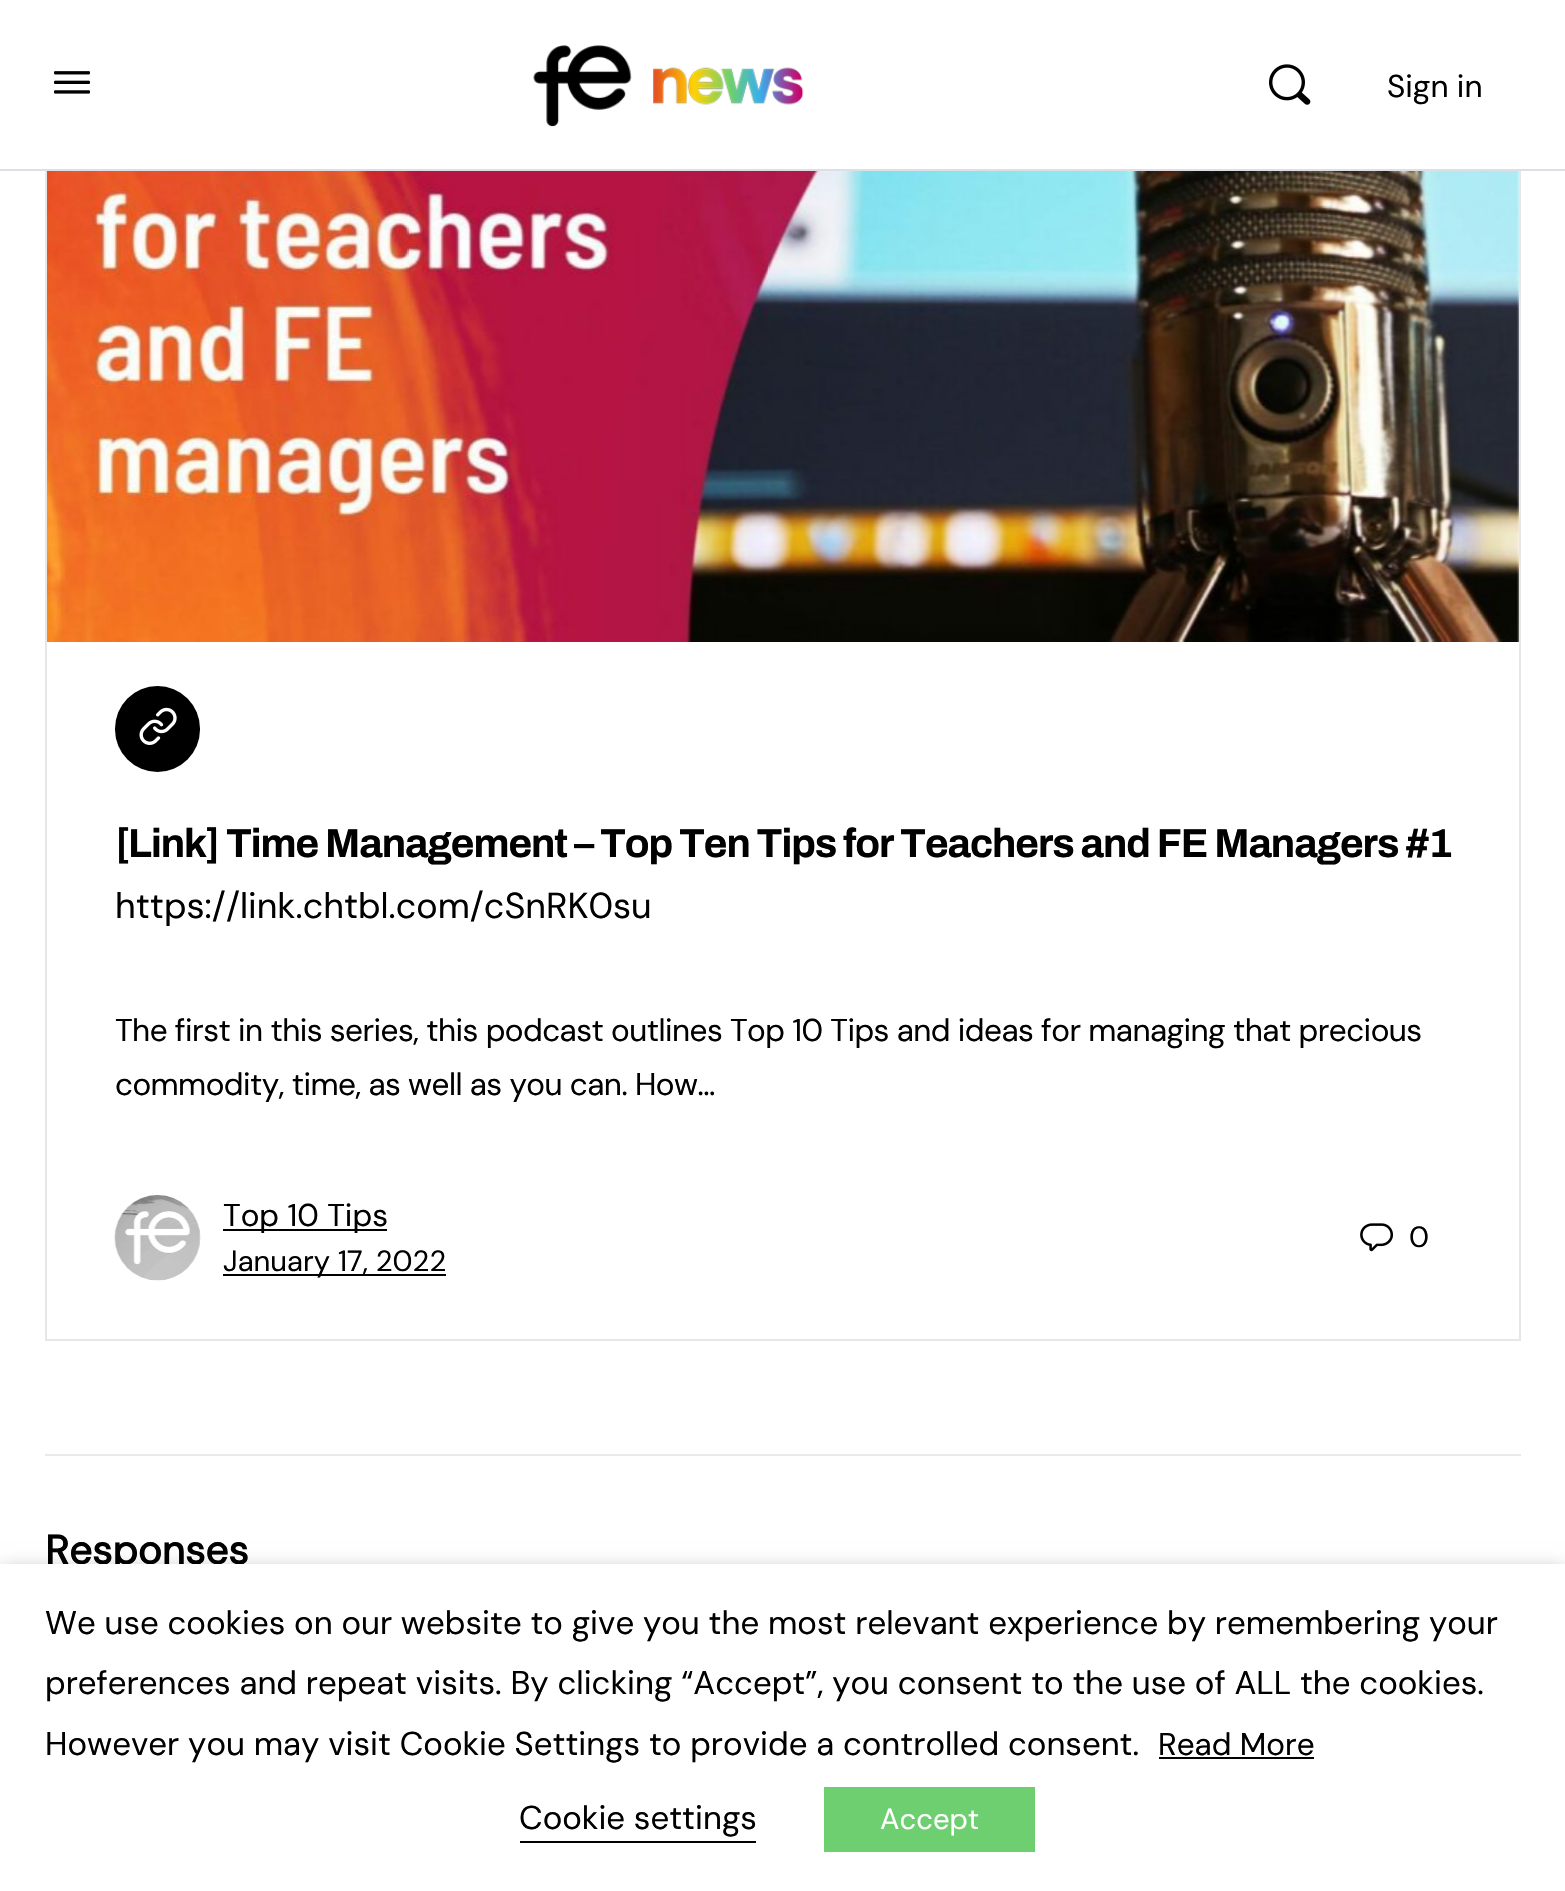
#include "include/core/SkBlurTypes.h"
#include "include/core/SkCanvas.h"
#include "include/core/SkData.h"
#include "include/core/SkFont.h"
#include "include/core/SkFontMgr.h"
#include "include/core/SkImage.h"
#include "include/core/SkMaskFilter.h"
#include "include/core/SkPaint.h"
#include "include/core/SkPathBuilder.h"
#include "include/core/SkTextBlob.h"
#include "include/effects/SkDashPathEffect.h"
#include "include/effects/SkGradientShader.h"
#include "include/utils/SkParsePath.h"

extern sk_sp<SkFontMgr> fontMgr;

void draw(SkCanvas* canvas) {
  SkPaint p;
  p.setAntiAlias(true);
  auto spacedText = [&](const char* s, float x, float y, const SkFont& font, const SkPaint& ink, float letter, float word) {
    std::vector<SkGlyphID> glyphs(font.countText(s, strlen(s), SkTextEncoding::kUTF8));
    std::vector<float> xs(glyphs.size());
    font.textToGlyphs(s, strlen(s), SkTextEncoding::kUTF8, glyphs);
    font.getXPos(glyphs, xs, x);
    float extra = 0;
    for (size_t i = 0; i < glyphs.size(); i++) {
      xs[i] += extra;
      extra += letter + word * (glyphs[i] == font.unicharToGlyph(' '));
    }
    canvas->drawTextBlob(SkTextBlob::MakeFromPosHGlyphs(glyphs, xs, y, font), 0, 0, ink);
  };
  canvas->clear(SK_ColorWHITE);
  p.setStyle(SkPaint::kStroke_Style);
  p.setStrokeWidth(2);
  p.setColor(SkColorSetRGB(231, 231, 231));
  canvas->drawRect(SkRect::MakeLTRB(46, -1, 1520, 1340), p);
  p.setStyle(SkPaint::kFill_Style);
  p.setColor(SK_ColorWHITE);
  canvas->drawRect(SkRect::MakeLTRB(45, 0, 1521, 169), p);
  p.setColor(SkColorSetRGB(220, 223, 227));
  canvas->drawRect(SkRect::MakeLTRB(0, 169, 1565, 171), p);
  canvas->drawImageRect(SkImages::DeferredFromEncodedData(SkData::MakeFromFileName("images/1.png")), SkRect::MakeLTRB(54, 71, 90, 94), SkSamplingOptions());
  canvas->drawImageRect(SkImages::DeferredFromEncodedData(SkData::MakeFromFileName("images/2.png")), SkRect::MakeLTRB(533, 45, 804, 127), SkSamplingOptions());
  canvas->drawImageRect(SkImages::DeferredFromEncodedData(SkData::MakeFromFileName("images/3.png")), SkRect::MakeLTRB(1269, 64, 1311, 105), SkSamplingOptions());
  p.setColor(SkColorSetRGB(231, 233, 236));
  canvas->drawRect(SkRect::MakeLTRB(45, 1454, 1521, 1456), p);
  canvas->drawImageRect(SkImages::DeferredFromEncodedData(SkData::MakeFromFileName("images/4.png")), SkRect::MakeLTRB(47, 171, 1519, 642), SkSamplingOptions());
  p.setColor(SK_ColorBLACK);
  canvas->drawRoundRect(SkRect::MakeLTRB(115, 686, 200, 772), 42.5f, 42.5f, p);
  canvas->drawImageRect(SkImages::DeferredFromEncodedData(SkData::MakeFromFileName("images/5.png")), SkRect::MakeLTRB(139, 707, 177, 745), SkSamplingOptions());
  canvas->drawImageRect(SkImages::DeferredFromEncodedData(SkData::MakeFromFileName("images/6.png")), SkRect::MakeLTRB(114, 1195, 201, 1281), SkSamplingOptions());
  canvas->drawRect(SkRect::MakeLTRB(223, 1229, 387, 1231), p);
  canvas->drawRect(SkRect::MakeLTRB(223, 1274, 446, 1276), p);
  canvas->drawImageRect(SkImages::DeferredFromEncodedData(SkData::MakeFromFileName("images/7.png")), SkRect::MakeLTRB(1360, 1223, 1393, 1252), SkSamplingOptions());
  p.setColor(SkColorSetARGB(128, 0, 0, 0));
  p.setMaskFilter(SkMaskFilter::MakeBlur(kNormal_SkBlurStyle, 11));
  canvas->drawRect(SkRect::MakeLTRB(0, 1575, 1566, 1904), p);
  p.setMaskFilter(nullptr);
  SkFont font1(fontMgr->matchFamilyStyle("DM Sans", SkFontStyle::Normal()), 31.5f);
  font1.setSubpixel(true);
  p.setColor(SK_ColorBLACK);
  canvas->drawString("Sign in", 1387, 97, font1, p);
  SkFont font2(fontMgr->matchFamilyStyle("Archivo", SkFontStyle(600, SkFontStyle::kNormal_Width, SkFontStyle::kUpright_Slant)), 40.5f);
  font2.setSubpixel(true);
  spacedText("[Link] Time Management – Top Ten Tips for Teachers and FE Managers #1", 115, 857, font2, p, -1.08f, 0);
  SkFont font3(fontMgr->matchFamilyStyle("DM Sans", SkFontStyle::Normal()), 36);
  font3.setSubpixel(true);
  canvas->drawString("https://link.chtbl.com/cSnRK0su", 115, 918, font3, p);
  spacedText("The first in this series, this podcast outlines Top 10 Tips and ideas for managing that precious", 115, 1041, font1, p, -0.55f, 0);
  spacedText("commodity, time, as well as you can. How…", 115, 1095, font1, p, -0.55f, 0);
  canvas->drawString("Top 10 Tips", 223, 1226, font1, p);
  SkFont font4(fontMgr->matchFamilyStyle("DM Sans", SkFontStyle::Normal()), 29.25f);
  font4.setSubpixel(true);
  canvas->drawString("January 17, 2022", 223, 1271, font4, p);
  canvas->drawString("0", 1409, 1247, font4, p);
  SkFont font5(fontMgr->matchFamilyStyle("DM Sans", SkFontStyle::Bold()), 40.5f);
  font5.setSubpixel(true);
  canvas->drawString("Responses", 45, 1564, font5, p);
  p.setColor(SK_ColorWHITE);
  canvas->drawRect(SkRect::MakeLTRB(0, 1564, 1565, 1891), p);
  SkFont font6(fontMgr->matchFamilyStyle("DM Sans", SkFontStyle::Normal()), 33);
  font6.setSubpixel(true);
  p.setColor(SK_ColorBLACK);
  canvas->drawString("We use cookies on our website to give you the most relevant experience by remembering your", 45, 1634, font6, p);
  canvas->drawString("preferences and repeat visits. By clicking “Accept”, you consent to the use of ALL the cookies.", 45, 1694, font6, p);
  canvas->drawString("However you may visit Cookie Settings to provide a controlled consent.", 45, 1755, font6, p);
  canvas->drawString("Read More", 1158, 1755, font1, p);
  canvas->drawRect(SkRect::MakeLTRB(1159, 1757, 1314, 1759), p);
  canvas->drawString("Cookie settings", 519, 1829, font6, p);
  canvas->drawRect(SkRect::MakeLTRB(520, 1841, 756, 1843), p);
  p.setColor(SkColorSetRGB(110, 207, 112));
  canvas->drawRect(SkRect::MakeLTRB(824, 1787, 1035, 1852), p);
  p.setColor(SK_ColorWHITE);
  canvas->drawString("Accept", 880, 1829, font4, p);
}
